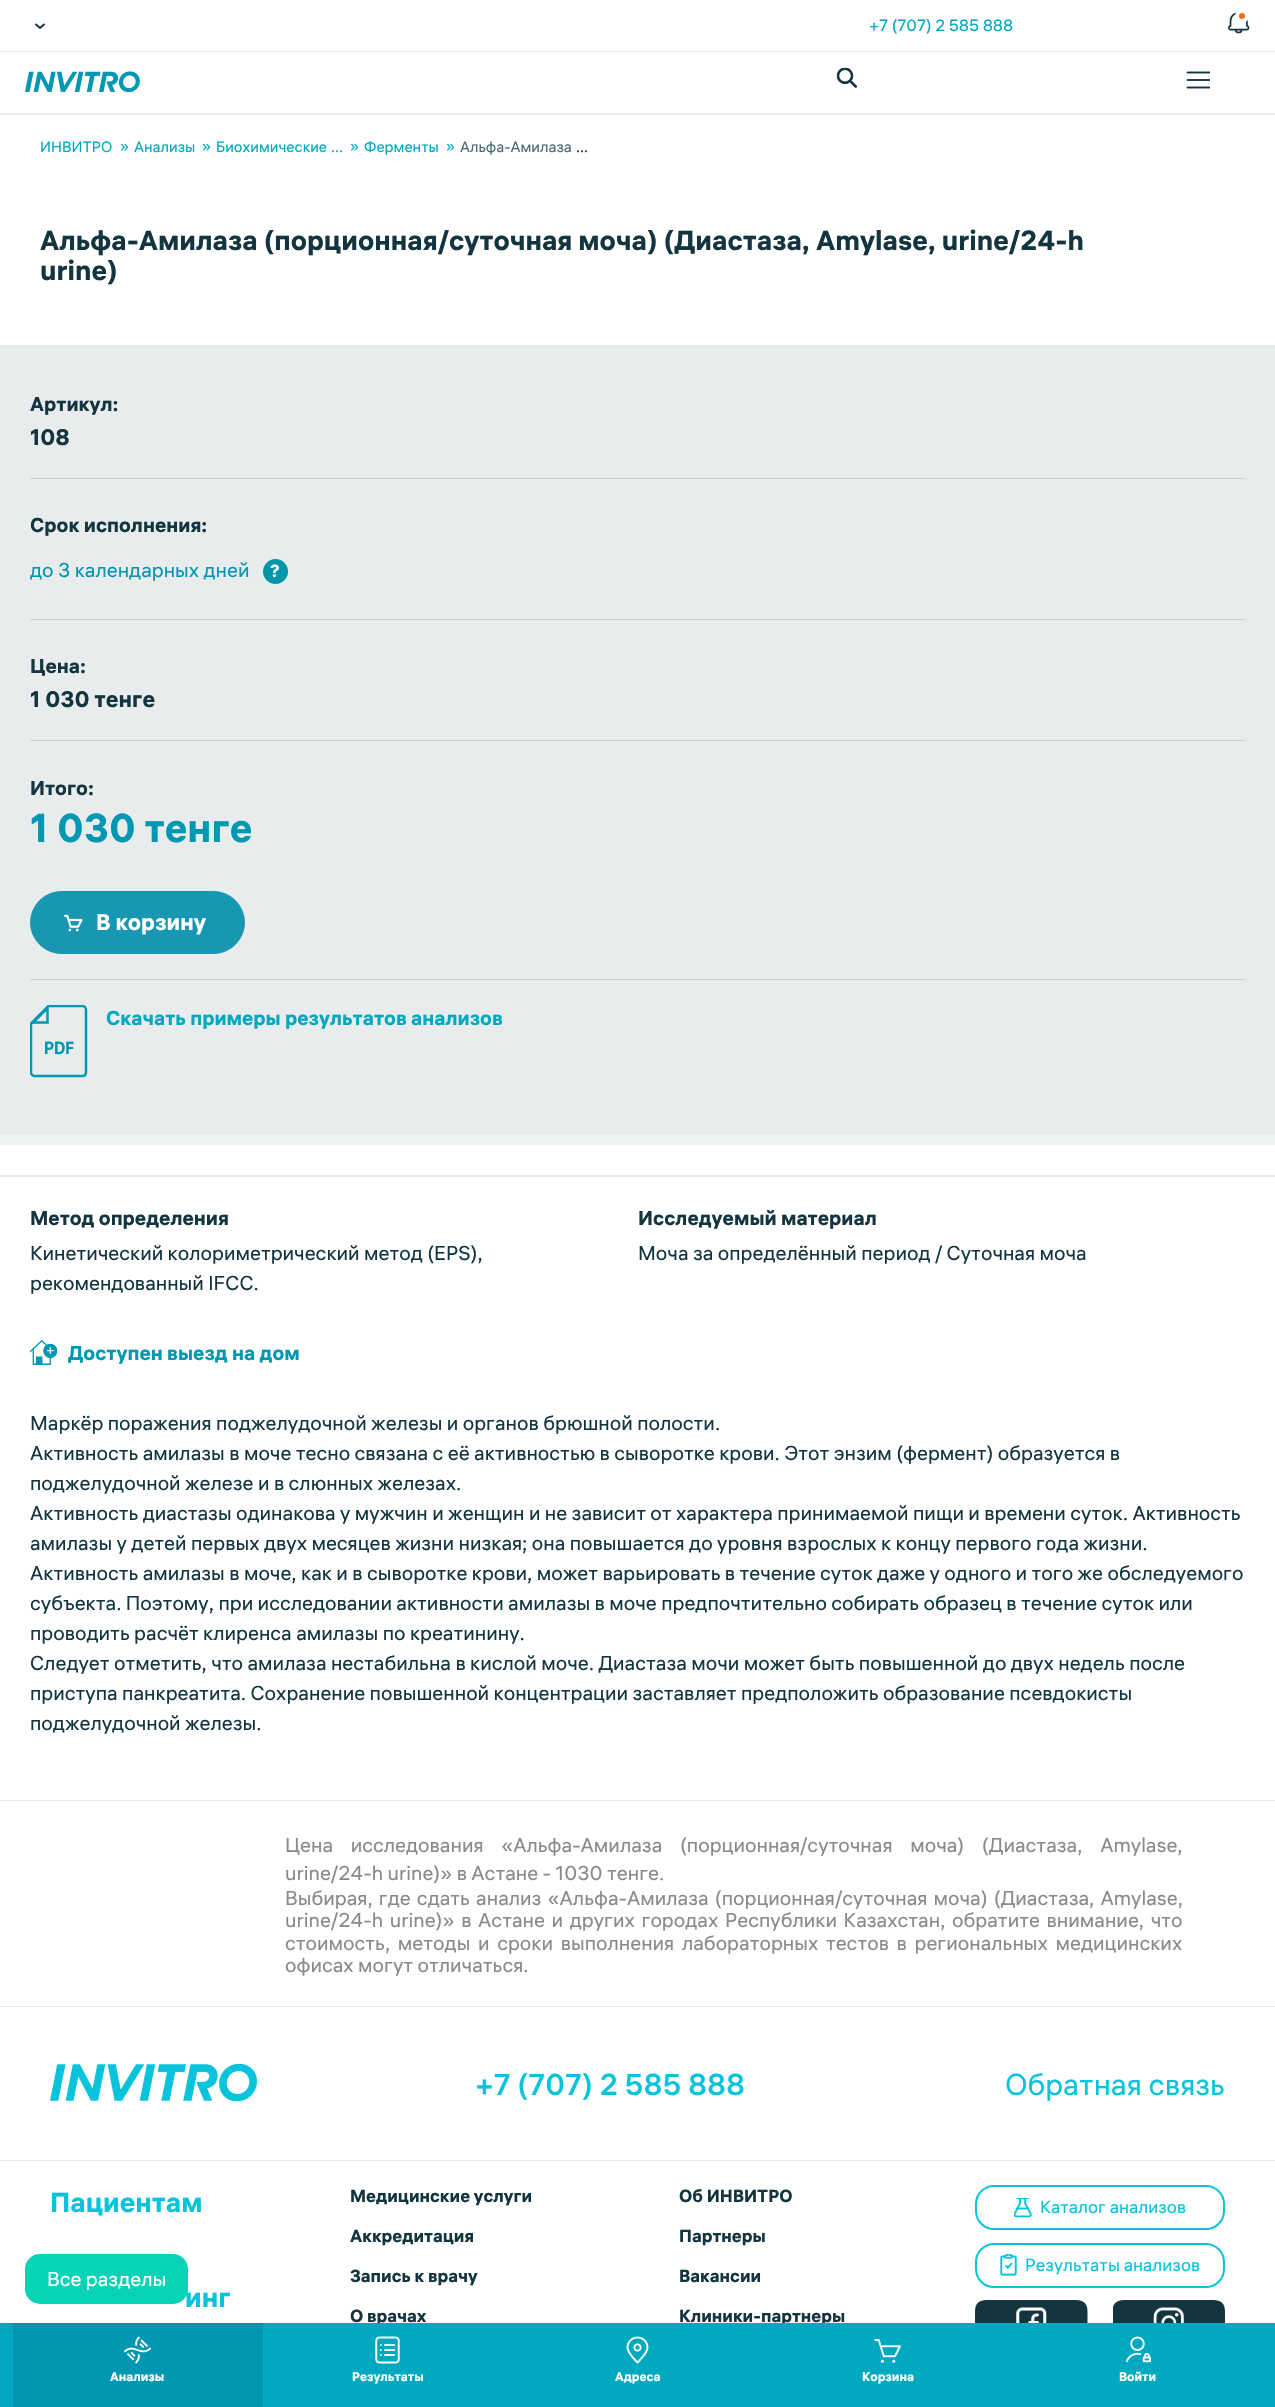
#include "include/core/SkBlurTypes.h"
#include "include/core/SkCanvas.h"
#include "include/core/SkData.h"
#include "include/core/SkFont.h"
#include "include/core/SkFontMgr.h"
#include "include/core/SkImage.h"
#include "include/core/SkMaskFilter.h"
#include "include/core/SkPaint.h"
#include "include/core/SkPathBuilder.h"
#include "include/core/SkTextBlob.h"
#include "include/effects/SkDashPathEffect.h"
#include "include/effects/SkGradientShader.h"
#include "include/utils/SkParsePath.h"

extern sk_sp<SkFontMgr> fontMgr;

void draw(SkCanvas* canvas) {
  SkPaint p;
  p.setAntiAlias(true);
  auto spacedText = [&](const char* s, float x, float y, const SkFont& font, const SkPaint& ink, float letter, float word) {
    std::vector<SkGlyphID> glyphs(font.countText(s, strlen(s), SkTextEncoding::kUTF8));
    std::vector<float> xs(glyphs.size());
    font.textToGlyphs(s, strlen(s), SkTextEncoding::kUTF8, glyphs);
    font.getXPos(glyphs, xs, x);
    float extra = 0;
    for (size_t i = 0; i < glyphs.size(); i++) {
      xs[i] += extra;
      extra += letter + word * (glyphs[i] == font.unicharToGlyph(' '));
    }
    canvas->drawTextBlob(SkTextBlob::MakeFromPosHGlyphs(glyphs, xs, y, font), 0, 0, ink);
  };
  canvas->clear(SK_ColorWHITE);
  p.setColor(SkColorSetRGB(232, 236, 237));
  canvas->drawRect(SkRect::MakeLTRB(0, 51, 1275, 52), p);
  p.setStyle(SkPaint::kStroke_Style);
  p.setStrokeWidth(1.9f);
  p.setStrokeCap(SkPaint::kRound_Cap);
  p.setColor(SkColorSetRGB(19, 53, 63));
  canvas->drawPath(SkPathBuilder().moveTo(36, 24.5f).lineTo(40, 28).lineTo(44, 24.5f).detach(), p);
  canvas->drawImageRect(SkImages::DeferredFromEncodedData(SkData::MakeFromFileName("images/1.png")), SkRect::MakeLTRB(1228, 10, 1250, 34), SkSamplingOptions());
  p.setStyle(SkPaint::kFill_Style);
  p.setColor(SkColorSetRGB(255, 106, 19));
  canvas->drawCircle(1242, 16, 5, p);
  p.setStyle(SkPaint::kStroke_Style);
  p.setStrokeWidth(4);
  p.setStrokeCap(SkPaint::kButt_Cap);
  p.setColor(SK_ColorWHITE);
  canvas->drawCircle(1242, 16, 5, p);
  p.setStyle(SkPaint::kFill_Style);
  p.setColor(SkColorSetRGB(232, 236, 237));
  canvas->drawRect(SkRect::MakeLTRB(0, 113, 1275, 115), p);
  canvas->drawImageRect(SkImages::DeferredFromEncodedData(SkData::MakeFromFileName("images/2.png")), SkRect::MakeLTRB(25, 71, 140, 93), SkSamplingOptions());
  canvas->drawImageRect(SkImages::DeferredFromEncodedData(SkData::MakeFromFileName("images/3.png")), SkRect::MakeLTRB(836, 67, 857, 88), SkSamplingOptions());
  canvas->drawImageRect(SkImages::DeferredFromEncodedData(SkData::MakeFromFileName("images/4.png")), SkRect::MakeLTRB(1186, 71, 1210, 89), SkSamplingOptions());
  canvas->drawRect(SkRect::MakeLTRB(0, 1800, 1275, 1801), p);
  canvas->drawRect(SkRect::MakeLTRB(0, 345, 1275, 1135), p);
  p.setColor(SkColorSetRGB(203, 208, 209));
  canvas->drawRect(SkRect::MakeLTRB(30, 478, 1245, 479), p);
  canvas->drawRect(SkRect::MakeLTRB(30, 619, 1245, 620), p);
  p.setColor(SkColorSetRGB(0, 150, 169));
  canvas->drawCircle(275.5f, 571.5f, 12.5f, p);
  p.setColor(SkColorSetRGB(203, 208, 209));
  canvas->drawRect(SkRect::MakeLTRB(30, 740, 1245, 741), p);
  p.setColor(SkColorSetRGB(23, 151, 177));
  canvas->drawRoundRect(SkRect::MakeLTRB(30.5f, 891.5f, 244.5f, 953.5f), 31, 31, p);
  p.setStyle(SkPaint::kStroke_Style);
  p.setStrokeWidth(1);
  canvas->drawRoundRect(SkRect::MakeLTRB(30.5f, 891.5f, 244.5f, 953.5f), 31, 31, p);
  canvas->drawImageRect(SkImages::DeferredFromEncodedData(SkData::MakeFromFileName("images/10.png")), SkRect::MakeLTRB(64, 914, 83, 932), SkSamplingOptions());
  p.setStyle(SkPaint::kFill_Style);
  p.setColor(SkColorSetRGB(203, 208, 209));
  canvas->drawRect(SkRect::MakeLTRB(30, 979, 1245, 980), p);
  canvas->save();
  canvas->clipRect(SkRect::MakeLTRB(30, 1005, 88, 1078));
  p.setStyle(SkPaint::kStroke_Style);
  p.setStrokeWidth(2.5f);
  p.setColor(SkColorSetRGB(0, 151, 179));
  canvas->drawPath(SkPathBuilder().moveTo(48.5f, 1006).lineTo(31, 1023.5f).lineTo(31, 1072.5f).cubicTo(31, 1074.5f, 33, 1076, 35, 1076).lineTo(82.5f, 1076).cubicTo(84.5f, 1076, 86, 1074.5f, 86, 1072.5f).lineTo(86, 1010).cubicTo(86, 1008, 84.5f, 1006, 82.5f, 1006).close().detach(), p);
  canvas->restore();
  canvas->drawPath(SkPathBuilder().moveTo(47.5f, 1008).lineTo(33, 1022.5f).lineTo(47.5f, 1022.5f).close().detach(), p);
  p.setStyle(SkPaint::kFill_Style);
  p.setColor(SkColorSetRGB(239, 242, 243));
  canvas->drawRect(SkRect::MakeLTRB(0, 1135, 1275, 1145), p);
  p.setColor(SkColorSetRGB(232, 236, 237));
  canvas->drawRect(SkRect::MakeLTRB(0, 1175, 1275, 1177), p);
  canvas->drawImageRect(SkImages::DeferredFromEncodedData(SkData::MakeFromFileName("images/11.png")), SkRect::MakeLTRB(30, 1340, 58, 1365), SkSamplingOptions());
  canvas->drawRect(SkRect::MakeLTRB(0, 2006, 1275, 2007), p);
  canvas->drawImageRect(SkImages::DeferredFromEncodedData(SkData::MakeFromFileName("images/12.png")), SkRect::MakeLTRB(50, 2064, 257, 2101), SkSamplingOptions());
  canvas->drawRect(SkRect::MakeLTRB(0, 2160, 1275, 2161), p);
  p.setStyle(SkPaint::kStroke_Style);
  p.setStrokeWidth(2);
  p.setColor(SkColorSetRGB(8, 195, 220));
  canvas->drawRoundRect(SkRect::MakeLTRB(976, 2186, 1224, 2229), 18, 18, p);
  canvas->drawImageRect(SkImages::DeferredFromEncodedData(SkData::MakeFromFileName("images/13.png")), SkRect::MakeLTRB(1014, 2198, 1032, 2218), SkSamplingOptions());
  canvas->drawRoundRect(SkRect::MakeLTRB(976, 2244, 1224, 2287), 18, 18, p);
  canvas->drawImageRect(SkImages::DeferredFromEncodedData(SkData::MakeFromFileName("images/14.png")), SkRect::MakeLTRB(1000, 2254, 1017, 2276), SkSamplingOptions());
  canvas->drawImageRect(SkImages::DeferredFromEncodedData(SkData::MakeFromFileName("images/15.png")), SkRect::MakeLTRB(975, 2300, 1088, 2323), SkSamplingOptions());
  canvas->drawImageRect(SkImages::DeferredFromEncodedData(SkData::MakeFromFileName("images/16.png")), SkRect::MakeLTRB(1113, 2300, 1225, 2323), SkSamplingOptions());
  SkFont font1(fontMgr->matchFamilyStyle("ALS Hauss", SkFontStyle::Normal()), 16.25f);
  font1.setSubpixel(true);
  p.setStyle(SkPaint::kFill_Style);
  p.setColor(SkColorSetRGB(0, 169, 191));
  canvas->drawString("+7 (707) 2 585 888", 869, 31, font1, p);
  SkFont font2(fontMgr->matchFamilyStyle("ALS Hauss", SkFontStyle::Normal()), 15);
  font2.setSubpixel(true);
  canvas->drawString("ИНВИТРО", 40, 152, font2, p);
  canvas->drawString("»", 120, 151, font2, p);
  canvas->drawString("Анализы", 134, 152, font2, p);
  canvas->drawString("»", 202, 151, font2, p);
  canvas->drawString("Биохимические", 216, 152, font2, p);
  canvas->drawString("»", 350, 151, font2, p);
  canvas->drawString("...", 331, 152, font2, p);
  canvas->drawString("Ферменты", 364, 152, font2, p);
  canvas->drawString("»", 446, 151, font2, p);
  p.setColor(SkColorSetRGB(75, 106, 117));
  canvas->drawString("Альфа-Амилаза", 460, 152, font2, p);
  p.setColor(SkColorSetRGB(19, 53, 63));
  canvas->drawString("...", 576, 152, font2, p);
  SkFont font3(fontMgr->matchFamilyStyle("ALS Hauss", SkFontStyle::Bold()), 27.5f);
  font3.setSubpixel(true);
  canvas->drawString("Альфа-Амилаза (порционная/суточная моча) (Диастаза, Amylase, urine/24-h", 40, 250, font3, p);
  canvas->drawString("urine)", 40, 280, font3, p);
  SkFont font4(fontMgr->matchFamilyStyle("ALS Hauss", SkFontStyle::Bold()), 20);
  font4.setSubpixel(true);
  canvas->drawString("Артикул:", 30, 411, font4, p);
  SkFont font5(fontMgr->matchFamilyStyle("ALS Hauss", SkFontStyle::Bold()), 22.5f);
  font5.setSubpixel(true);
  canvas->drawString("108", 30, 445, font5, p);
  canvas->drawString("Срок исполнения:", 30, 532, font4, p);
  SkFont font6(fontMgr->matchFamilyStyle("ALS Hauss", SkFontStyle::Normal()), 20);
  font6.setSubpixel(true);
  p.setColor(SkColorSetRGB(0, 151, 179));
  canvas->drawString("до 3 календарных дней", 30, 577, font6, p);
  SkFont font7(fontMgr->matchFamilyStyle("ALS Hauss", SkFontStyle::Bold()), 17.5f);
  font7.setSubpixel(true);
  p.setColor(SK_ColorWHITE);
  canvas->drawString("?", 270, 577, font7, p);
  p.setColor(SkColorSetRGB(19, 53, 63));
  canvas->drawString("Цена:", 30, 673, font4, p);
  canvas->drawString("1 030 тенге", 30, 707, font5, p);
  canvas->drawString("Итого:", 30, 795, font4, p);
  SkFont font8(fontMgr->matchFamilyStyle("ALS Hauss", SkFontStyle::Bold()), 40);
  font8.setSubpixel(true);
  p.setColor(SkColorSetRGB(0, 151, 179));
  canvas->drawString("1 030 тенге", 30, 842, font8, p);
  p.setColor(SK_ColorWHITE);
  canvas->drawString("В корзину", 96, 930, font5, p);
  p.setColor(SkColorSetRGB(0, 169, 191));
  canvas->drawString("Скачать примеры результатов анализов", 106, 1025, font4, p);
  SkFont font9(fontMgr->matchFamilyStyle("PT Sans", SkFontStyle::Bold()), 17.5f);
  font9.setSubpixel(true);
  p.setColor(SkColorSetRGB(0, 151, 179));
  canvas->drawString("PDF", 44, 1054, font9, p);
  p.setColor(SkColorSetRGB(19, 53, 63));
  canvas->drawString("Метод определения", 30, 1225, font4, p);
  canvas->drawString("Кинетический колориметрический метод (EPS),", 30, 1260, font6, p);
  canvas->drawString("рекомендованный IFCC.", 30, 1290, font6, p);
  canvas->drawString("Исследуемый материал", 638, 1225, font4, p);
  canvas->drawString("Моча за определённый период / Суточная моча", 638, 1260, font6, p);
  p.setColor(SkColorSetRGB(0, 151, 179));
  canvas->drawString("Доступен выезд на дом", 68, 1360, font4, p);
  p.setColor(SkColorSetRGB(19, 53, 63));
  canvas->drawString("Маркёр поражения поджелудочной железы и органов брюшной полости.", 30, 1430, font6, p);
  canvas->drawString("Активность амилазы в моче тесно связана с её активностью в сыворотке крови. Этот энзим (фермент) образуется в", 30, 1460, font6, p);
  canvas->drawString("поджелудочной железе и в слюнных железах.", 30, 1490, font6, p);
  canvas->drawString("Активность диастазы одинакова у мужчин и женщин и не зависит от характера принимаемой пищи и времени суток. Активность", 30, 1520, font6, p);
  canvas->drawString("амилазы у детей первых двух месяцев жизни низкая; она повышается до уровня взрослых к концу первого года жизни.", 30, 1550, font6, p);
  canvas->drawString("Активность амилазы в моче, как и в сыворотке крови, может варьировать в течение суток даже у одного и того же обследуемого", 30, 1580, font6, p);
  canvas->drawString("субъекта. Поэтому, при исследовании активности амилазы в моче предпочтительно собирать образец в течение суток или", 30, 1610, font6, p);
  canvas->drawString("проводить расчёт клиренса амилазы по креатинину.", 30, 1640, font6, p);
  canvas->drawString("Следует отметить, что амилаза нестабильна в кислой моче. Диастаза мочи может быть повышенной до двух недель после", 30, 1670, font6, p);
  canvas->drawString("приступа панкреатита. Сохранение повышенной концентрации заставляет предположить образование псевдокисты", 30, 1700, font6, p);
  canvas->drawString("поджелудочной железы.", 30, 1730, font6, p);
  p.setColor(SkColorSetRGB(136, 139, 141));
  spacedText("Цена исследования «Альфа-Амилаза (порционная/суточная моча) (Диастаза, Amylase,", 285, 1852, font6, p, 0, 13.25f);
  canvas->drawString("urine/24-h urine)» в Астане - 1030 тенге.", 285, 1880, font6, p);
  spacedText("Выбирая, где сдать анализ «Альфа-Амилаза (порционная/суточная моча) (Диастаза, Amylase,", 285, 1905, font6, p, 0, 1.75f);
  spacedText("urine/24-h urine)» в Астане и других городах Республики Казахстан, обратите внимание, что", 285, 1927, font6, p, 0, 2.25f);
  spacedText("стоимость, методы и сроки выполнения лабораторных тестов в региональных медицинских", 285, 1950, font6, p, 0, 3.25f);
  canvas->drawString("офисах могут отличаться.", 285, 1972, font6, p);
  SkFont font10(fontMgr->matchFamilyStyle("ALS Hauss", SkFontStyle(500, SkFontStyle::kNormal_Width, SkFontStyle::kUpright_Slant)), 30);
  font10.setSubpixel(true);
  p.setColor(SkColorSetRGB(8, 195, 220));
  canvas->drawString("+7 (707) 2 585 888", 475, 2095, font10, p);
  SkFont font11(fontMgr->matchFamilyStyle("ALS Hauss", SkFontStyle::Normal()), 30);
  font11.setSubpixel(true);
  canvas->drawString("Обратная связь", 1005, 2095, font11, p);
  canvas->drawString("Пациентам", 50, 2212, font3, p);
  canvas->drawString("инг", 185, 2307, font3, p);
  p.setColor(SkColorSetRGB(8, 211, 183));
  canvas->drawRoundRect(SkRect::MakeLTRB(25, 2254, 188, 2304), 15, 15, p);
  p.setColor(SK_ColorWHITE);
  canvas->drawString("Все разделы", 47, 2286, font6, p);
  p.setColor(SkColorSetRGB(19, 53, 63));
  canvas->drawString("Медицинские услуги", 350, 2202, font7, p);
  canvas->drawString("Аккредитация", 350, 2242, font7, p);
  canvas->drawString("Запись к врачу", 350, 2282, font7, p);
  canvas->drawString("О врачах", 350, 2322, font7, p);
  canvas->drawString("Об ИНВИТРО", 679, 2202, font7, p);
  canvas->drawString("Партнеры", 679, 2242, font7, p);
  canvas->drawString("Вакансии", 679, 2282, font7, p);
  canvas->drawString("Клиники-партнеры", 679, 2322, font7, p);
  p.setColor(SkColorSetRGB(0, 169, 191));
  canvas->drawRect(SkRect::MakeLTRB(0, 2323, 1275, 2407), p);
  canvas->drawImageRect(SkImages::DeferredFromEncodedData(SkData::MakeFromFileName("images/9.png")), SkRect::MakeLTRB(1126, 2336, 1151, 2363), SkSamplingOptions());
  SkFont font12(fontMgr->matchFamilyStyle("ALS Hauss", SkFontStyle::Bold()), 12.5f);
  font12.setSubpixel(true);
  p.setColor(SK_ColorWHITE);
  canvas->drawString("Войти", 1119, 2381, font12, p);
  canvas->drawImageRect(SkImages::DeferredFromEncodedData(SkData::MakeFromFileName("images/8.png")), SkRect::MakeLTRB(874, 2339, 901, 2363), SkSamplingOptions());
  canvas->drawString("Корзина", 862, 2381, font12, p);
  canvas->drawImageRect(SkImages::DeferredFromEncodedData(SkData::MakeFromFileName("images/7.png")), SkRect::MakeLTRB(626, 2336, 649, 2364), SkSamplingOptions());
  canvas->drawImageRect(SkImages::DeferredFromEncodedData(SkData::MakeFromFileName("images/6.png")), SkRect::MakeLTRB(375, 2336, 400, 2364), SkSamplingOptions());
  p.setColor(SkColorSetRGB(0, 151, 179));
  canvas->drawRect(SkRect::MakeLTRB(13, 2323, 263, 2407), p);
  canvas->drawImageRect(SkImages::DeferredFromEncodedData(SkData::MakeFromFileName("images/5.png")), SkRect::MakeLTRB(124, 2336, 151, 2364), SkSamplingOptions());
  p.setColor(SK_ColorWHITE);
  canvas->drawString("Адреса", 615, 2381, font12, p);
  canvas->drawString("Результаты", 352, 2381, font12, p);
  canvas->drawString("Анализы", 110, 2381, font12, p);
  SkFont font13(fontMgr->matchFamilyStyle("ALS Hauss", SkFontStyle::Normal()), 17.5f);
  font13.setSubpixel(true);
  p.setColor(SkColorSetRGB(8, 195, 220));
  canvas->drawString("Каталог анализов", 1040, 2213, font13, p);
  canvas->drawString("Результаты анализов", 1025, 2271, font13, p);
}
